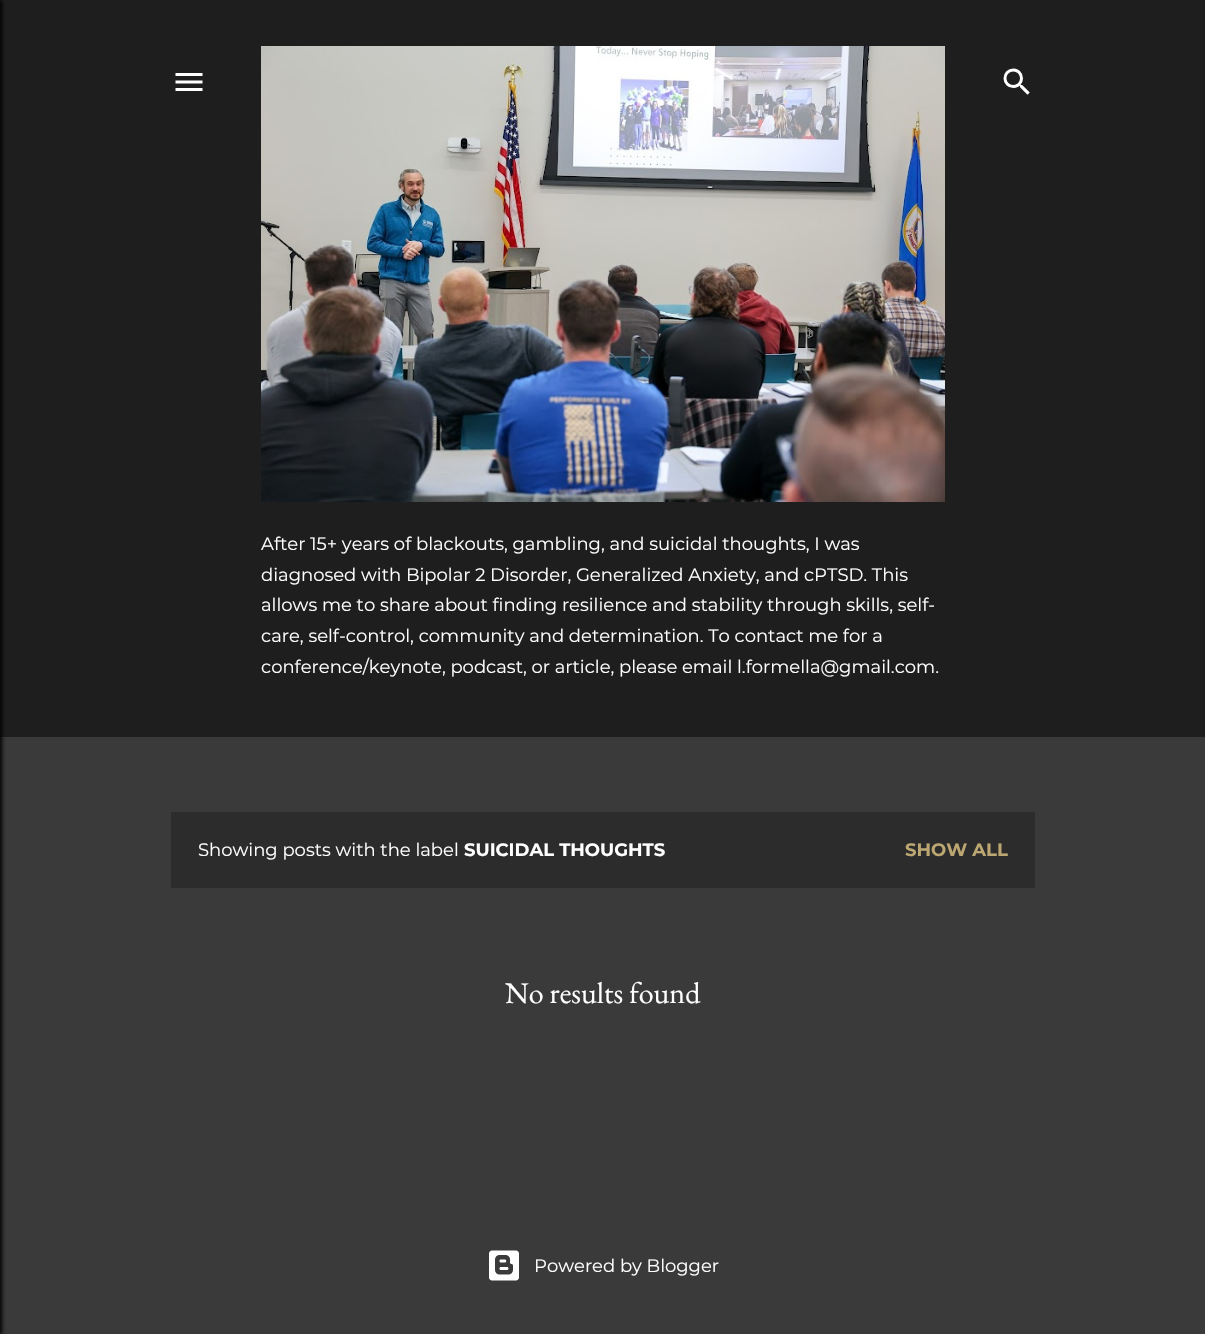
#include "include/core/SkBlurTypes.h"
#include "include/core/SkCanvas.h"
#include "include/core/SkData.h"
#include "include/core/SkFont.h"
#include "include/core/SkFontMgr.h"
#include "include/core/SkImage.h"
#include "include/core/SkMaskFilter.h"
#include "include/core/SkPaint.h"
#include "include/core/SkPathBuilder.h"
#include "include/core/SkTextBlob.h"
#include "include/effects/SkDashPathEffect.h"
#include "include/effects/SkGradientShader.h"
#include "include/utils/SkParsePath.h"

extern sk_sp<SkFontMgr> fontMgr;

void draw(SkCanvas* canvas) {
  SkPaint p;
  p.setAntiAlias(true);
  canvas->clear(SkColorSetRGB(58, 58, 58));
  p.setColor(SkColorSetRGB(30, 30, 30));
  canvas->drawRect(SkRect::MakeLTRB(0, 0, 1205, 737), p);
  p.setColor(SK_ColorBLACK);
  p.setMaskFilter(SkMaskFilter::MakeBlur(kNormal_SkBlurStyle, 2));
  canvas->drawRect(SkRect::MakeLTRB(-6, 0, 2, 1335), p);
  p.setMaskFilter(nullptr);
  canvas->drawImageRect(SkImages::DeferredFromEncodedData(SkData::MakeFromFileName("images/1.png")), SkRect::MakeLTRB(175, 73, 203, 91), SkSamplingOptions());
  canvas->drawImageRect(SkImages::DeferredFromEncodedData(SkData::MakeFromFileName("images/2.png")), SkRect::MakeLTRB(1003, 68, 1030, 95), SkSamplingOptions());
  canvas->drawImageRect(SkImages::DeferredFromEncodedData(SkData::MakeFromFileName("images/3.png")), SkRect::MakeLTRB(261, 46, 945, 502), SkSamplingOptions());
  p.setColor(SkColorSetRGB(44, 44, 44));
  canvas->drawRect(SkRect::MakeLTRB(171, 812, 1035, 888), p);
  canvas->drawImageRect(SkImages::DeferredFromEncodedData(SkData::MakeFromFileName("images/4.png")), SkRect::MakeLTRB(489, 1250, 519, 1281), SkSamplingOptions());
  SkFont font1(fontMgr->matchFamilyStyle("Montserrat", SkFontStyle::Normal()), 18);
  font1.setSubpixel(true);
  p.setColor(SK_ColorWHITE);
  canvas->drawString("After 15+ years of blackouts, gambling, and suicidal thoughts, I was", 261, 550, font1, p);
  canvas->drawString("diagnosed with Bipolar 2 Disorder, Generalized Anxiety, and cPTSD. This", 261, 581, font1, p);
  canvas->drawString("allows me to share about finding resilience and stability through skills, self-", 261, 611, font1, p);
  canvas->drawString("care, self-control, community and determination. To contact me for a", 261, 642, font1, p);
  canvas->drawString("conference/keynote, podcast, or article, please email l.formella@gmail.com.", 261, 673, font1, p);
  canvas->drawString("Showing posts with the label", 198, 856, font1, p);
  SkFont font2(fontMgr->matchFamilyStyle("Montserrat", SkFontStyle::Bold()), 18);
  font2.setSubpixel(true);
  canvas->drawString("SUICIDAL THOUGHTS", 464, 856, font2, p);
  p.setColor(SkColorSetRGB(188, 167, 114));
  canvas->drawString("SHOW ALL", 905, 856, font2, p);
  SkFont font3(fontMgr->matchFamilyStyle("EB Garamond", SkFontStyle::Normal()), 30);
  font3.setSubpixel(true);
  p.setColor(SK_ColorWHITE);
  canvas->drawString("No results found", 505, 1003, font3, p);
  canvas->drawString("Powered by Blogger", 534, 1272, font1, p);
}
